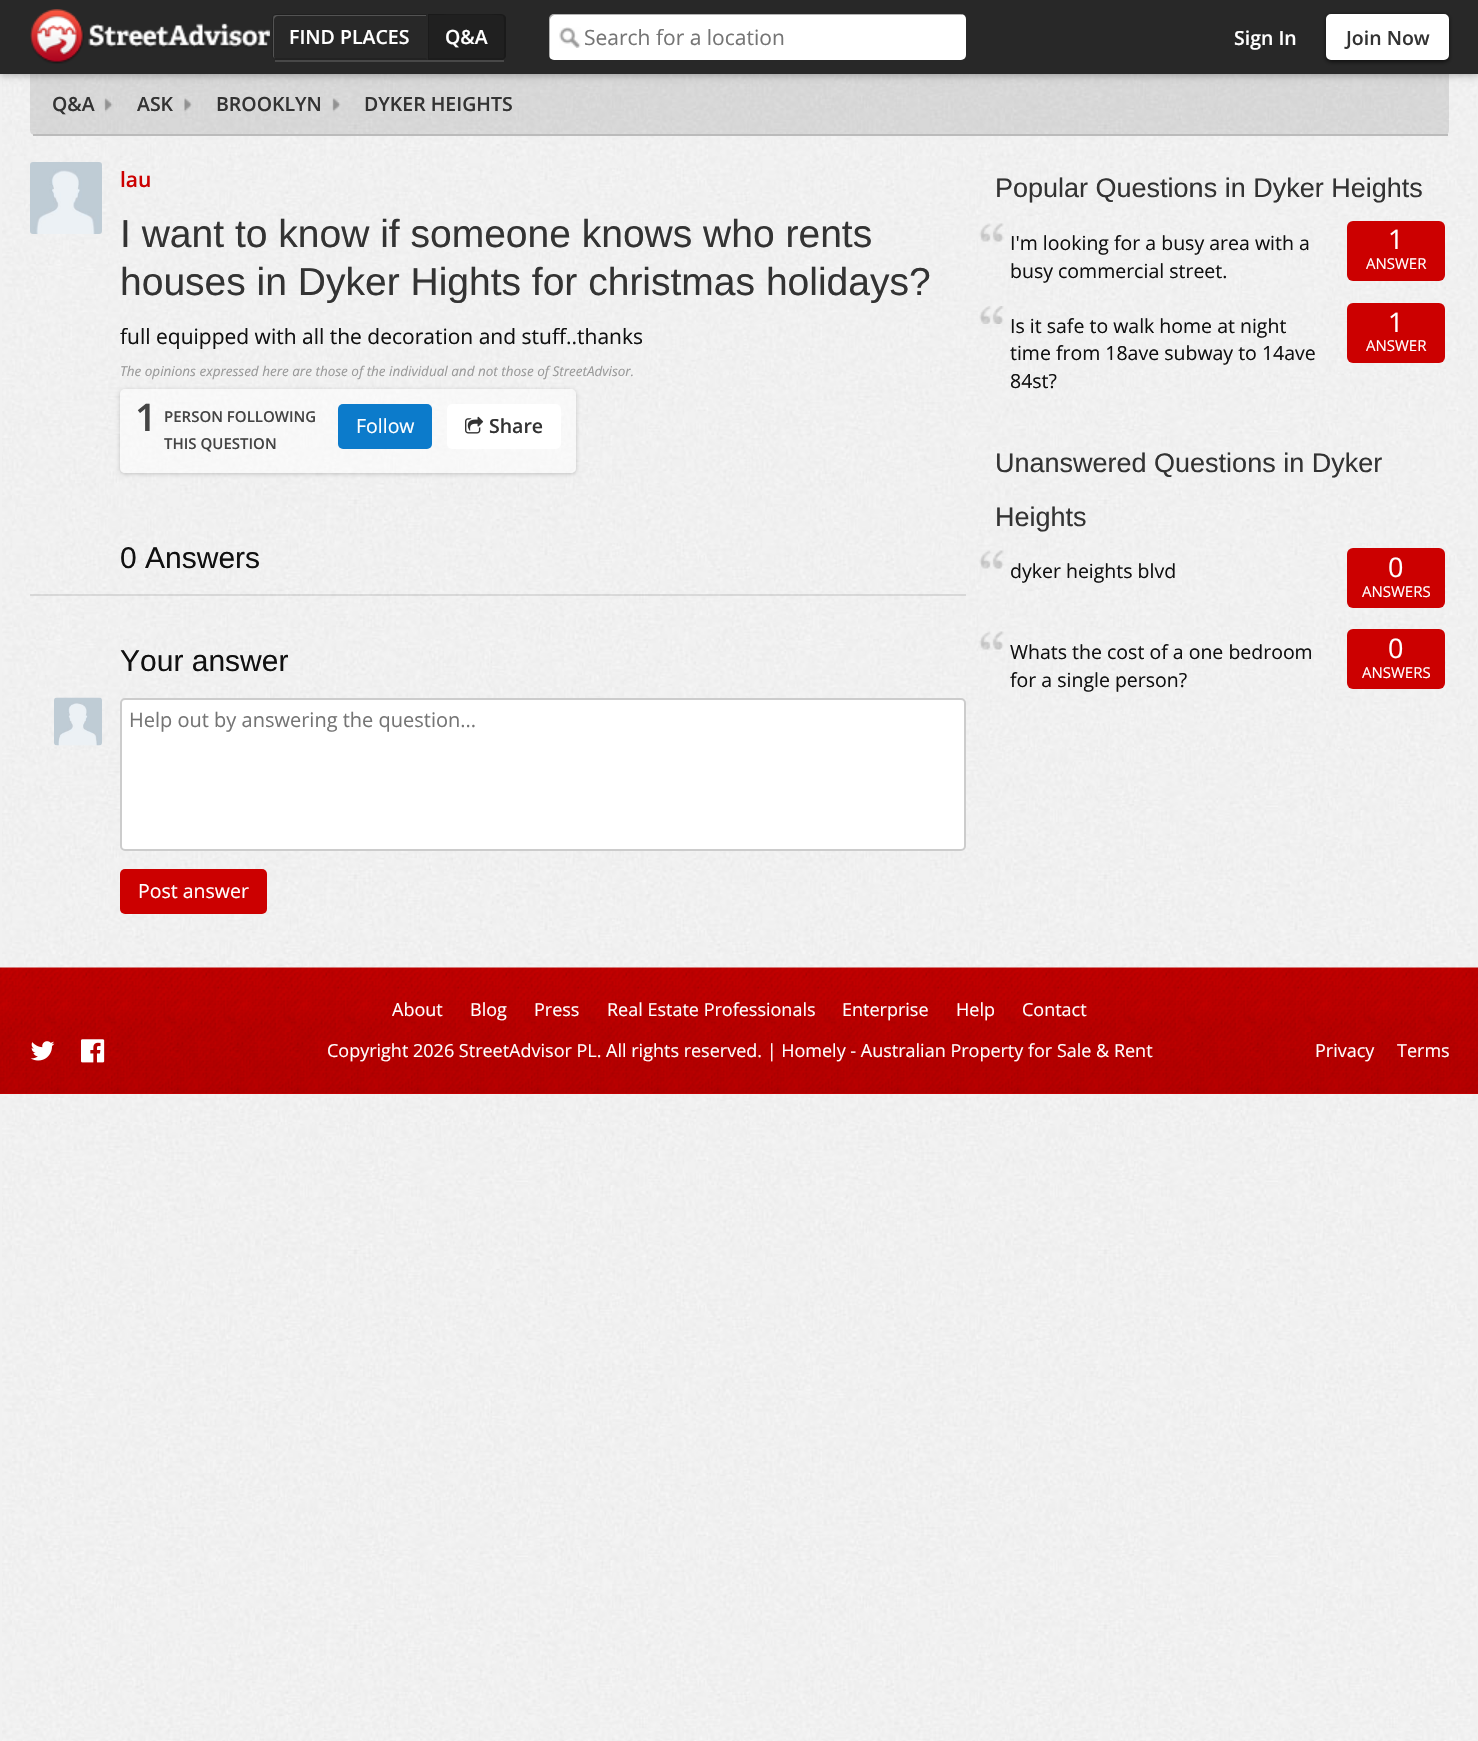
#include "include/core/SkBlurTypes.h"
#include "include/core/SkCanvas.h"
#include "include/core/SkData.h"
#include "include/core/SkFont.h"
#include "include/core/SkFontMgr.h"
#include "include/core/SkImage.h"
#include "include/core/SkMaskFilter.h"
#include "include/core/SkPaint.h"
#include "include/core/SkPathBuilder.h"
#include "include/core/SkTextBlob.h"
#include "include/effects/SkDashPathEffect.h"
#include "include/effects/SkGradientShader.h"
#include "include/utils/SkParsePath.h"

extern sk_sp<SkFontMgr> fontMgr;

void draw(SkCanvas* canvas) {
  SkPaint p;
  p.setAntiAlias(true);
  canvas->clear(SkColorSetRGB(241, 241, 241));
  canvas->drawImageRect(SkImages::DeferredFromEncodedData(SkData::MakeFromFileName("images/1.png")), SkRect::MakeLTRB(2, 74, 1477, 1741), SkSamplingOptions());
  p.setColor(SkColorSetARGB(26, 0, 0, 0));
  canvas->drawPath(SkPathBuilder().moveTo(30, 74).lineTo(1449, 74).lineTo(1449, 130).cubicTo(1449, 133, 1447, 135, 1444, 135).lineTo(35, 135).cubicTo(32, 135, 30, 133, 30, 130).close().detach(), p);
  p.setColor(SkColorSetARGB(77, 0, 0, 0));
  p.setMaskFilter(SkMaskFilter::MakeBlur(kNormal_SkBlurStyle, 4));
  canvas->drawRect(SkRect::MakeLTRB(0, 2, 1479, 75), p);
  p.setMaskFilter(nullptr);
  p.setColor(SkColorSetRGB(40, 40, 40));
  canvas->drawRect(SkRect::MakeLTRB(0, 0, 1478, 74), p);
  canvas->drawImageRect(SkImages::DeferredFromEncodedData(SkData::MakeFromFileName("images/2.png")), SkRect::MakeLTRB(30, 9, 270, 64), SkSamplingOptions());
  p.setColor(SkColorSetRGB(72, 72, 72));
  canvas->drawRect(SkRect::MakeLTRB(275, 60, 504, 62), p);
  p.setColor(SkColorSetRGB(83, 83, 83));
  canvas->drawPath(SkPathBuilder().moveTo(278, 16).lineTo(426, 16).lineTo(426, 15).lineTo(276, 15).cubicTo(274, 15, 273, 16, 273, 18).lineTo(273, 56).cubicTo(273, 57, 274, 58, 275, 59).lineTo(274, 57).lineTo(274, 20).cubicTo(274, 18, 276, 16, 278, 16).close().detach(), p);
  p.setColor(SkColorSetARGB(51, 0, 0, 0));
  canvas->drawPath(SkPathBuilder().moveTo(276, 14).lineTo(273, 15).lineTo(274, 16).lineTo(276, 15).lineTo(426, 15).lineTo(427, 14).close().detach(), p);
  p.setColor(SkColorSetARGB(38, 0, 0, 0));
  canvas->drawPath(SkPathBuilder().moveTo(428, 60).lineTo(426, 58).lineTo(276, 58).lineTo(274, 58).lineTo(273, 58).cubicTo(274, 59, 275, 60, 276, 60).close().detach(), p);
  canvas->drawPath(SkPathBuilder().moveTo(273, 15).lineTo(272, 18).lineTo(272, 50).cubicTo(272, 52, 271, 56, 273, 58).lineTo(274, 58).lineTo(273, 57).cubicTo(273, 56, 272, 17, 274, 16).close().detach(), p);
  p.setColor(SkColorSetRGB(32, 32, 32));
  canvas->drawPath(SkPathBuilder().moveTo(428, 14).lineTo(501, 14).cubicTo(504, 14, 506, 16, 506, 19).lineTo(506, 55).cubicTo(506, 58, 504, 60, 501, 60).lineTo(428, 60).close().detach(), p);
  p.setColor(SkColorSetRGB(26, 26, 26));
  canvas->drawPath(SkPathBuilder().moveTo(428, 14).lineTo(429, 15).cubicTo(437, 15, 502, 14, 503, 16).lineTo(504, 15).lineTo(501, 14).close().detach(), p);
  p.setColor(SkColorSetARGB(51, 0, 0, 0));
  canvas->drawPath(SkPathBuilder().moveTo(506, 57).lineTo(504, 59).lineTo(503, 58).lineTo(504, 57).cubicTo(504, 56, 505, 17, 503, 16).lineTo(504, 15).lineTo(506, 17).close().detach(), p);
  p.setColor(SkColorSetARGB(38, 0, 0, 0));
  canvas->drawPath(SkPathBuilder().moveTo(428, 60).lineTo(501, 60).cubicTo(502, 60, 503, 60, 504, 59).lineTo(503, 58).lineTo(501, 58).lineTo(430, 58).close().detach(), p);
  canvas->drawPath(SkPathBuilder().moveTo(429, 15).lineTo(428, 14).lineTo(428, 60).lineTo(430, 58).lineTo(429, 58).close().detach(), p);
  p.setColor(SK_ColorWHITE);
  canvas->drawRoundRect(SkRect::MakeLTRB(549, 14, 966, 60), 5, 5, p);
  canvas->drawImageRect(SkImages::DeferredFromEncodedData(SkData::MakeFromFileName("images/3.png")), SkRect::MakeLTRB(559, 27, 581, 48), SkSamplingOptions());
  p.setColor(SkColorSetARGB(77, 0, 0, 0));
  canvas->drawPath(SkPathBuilder().moveTo(555, 15).lineTo(964, 15).cubicTo(963, 14, 962, 14, 961, 14).lineTo(554, 14).cubicTo(551, 14, 549, 16, 549, 19).lineTo(549, 55).cubicTo(549, 56, 550, 58, 550, 59).lineTo(550, 57).lineTo(550, 20).cubicTo(550, 17, 553, 15, 555, 15).close().detach(), p);
  p.setColor(SkColorSetARGB(153, 0, 0, 0));
  p.setMaskFilter(SkMaskFilter::MakeBlur(kNormal_SkBlurStyle, 2));
  canvas->drawRoundRect(SkRect::MakeLTRB(1326, 15, 1449, 62), 5, 5, p);
  p.setMaskFilter(nullptr);
  p.setColor(SK_ColorWHITE);
  canvas->drawRoundRect(SkRect::MakeLTRB(1327, 15, 1448, 59), 4, 4, p);
  p.setStyle(SkPaint::kStroke_Style);
  p.setStrokeWidth(2);
  canvas->drawRoundRect(SkRect::MakeLTRB(1327, 15, 1448, 59), 4, 4, p);
  p.setStyle(SkPaint::kFill_Style);
  p.setColor(SkColorSetRGB(187, 187, 187));
  canvas->drawRect(SkRect::MakeLTRB(33, 134, 1448, 136), p);
  canvas->drawImageRect(SkImages::DeferredFromEncodedData(SkData::MakeFromFileName("images/4.png")), SkRect::MakeLTRB(104, 98, 113, 112), SkSamplingOptions());
  canvas->drawImageRect(SkImages::DeferredFromEncodedData(SkData::MakeFromFileName("images/5.png")), SkRect::MakeLTRB(184, 98, 192, 112), SkSamplingOptions());
  canvas->drawImageRect(SkImages::DeferredFromEncodedData(SkData::MakeFromFileName("images/6.png")), SkRect::MakeLTRB(332, 98, 341, 112), SkSamplingOptions());
  canvas->drawImageRect(SkImages::DeferredFromEncodedData(SkData::MakeFromFileName("images/7.png")), SkRect::MakeLTRB(30, 162, 102, 234), SkSamplingOptions());
  canvas->save();
  canvas->clipPath(SkPathBuilder(SkPathFillType::kEvenOdd).moveTo(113, 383).lineTo(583, 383).lineTo(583, 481).lineTo(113, 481).close().moveTo(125, 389).lineTo(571, 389).cubicTo(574, 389, 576, 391, 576, 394).lineTo(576, 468).cubicTo(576, 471, 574, 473, 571, 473).lineTo(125, 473).cubicTo(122, 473, 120, 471, 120, 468).lineTo(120, 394).cubicTo(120, 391, 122, 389, 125, 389).close().detach(), true);
  p.setColor(SkColorSetARGB(51, 0, 0, 0));
  p.setMaskFilter(SkMaskFilter::MakeBlur(kNormal_SkBlurStyle, 2));
  canvas->drawRoundRect(SkRect::MakeLTRB(120, 390, 576, 474), 5, 5, p);
  p.setMaskFilter(nullptr);
  canvas->restore();
  p.setColor(SkColorSetARGB(128, 255, 255, 255));
  canvas->drawRoundRect(SkRect::MakeLTRB(120, 389, 576, 473), 5, 5, p);
  p.setColor(SkColorSetRGB(12, 123, 203));
  canvas->drawRoundRect(SkRect::MakeLTRB(338, 404, 432, 449), 5, 5, p);
  p.setColor(SK_ColorWHITE);
  canvas->drawRoundRect(SkRect::MakeLTRB(447, 404, 561, 449), 5, 5, p);
  canvas->drawImageRect(SkImages::DeferredFromEncodedData(SkData::MakeFromFileName("images/8.png")), SkRect::MakeLTRB(465, 416, 484, 434), SkSamplingOptions());
  p.setColor(SkColorSetARGB(26, 0, 0, 0));
  canvas->drawRect(SkRect::MakeLTRB(30, 594, 966, 596), p);
  canvas->drawImageRect(SkImages::DeferredFromEncodedData(SkData::MakeFromFileName("images/9.png")), SkRect::MakeLTRB(54, 697, 102, 746), SkSamplingOptions());
  p.setColor(SK_ColorWHITE);
  canvas->drawRoundRect(SkRect::MakeLTRB(121, 699, 965, 850), 4, 4, p);
  p.setStyle(SkPaint::kStroke_Style);
  p.setColor(SkColorSetRGB(204, 204, 204));
  canvas->drawRoundRect(SkRect::MakeLTRB(121, 699, 965, 850), 4, 4, p);
  p.setStyle(SkPaint::kFill_Style);
  p.setColor(SkColorSetRGB(204, 0, 0));
  canvas->drawRoundRect(SkRect::MakeLTRB(120, 869, 267, 914), 5, 5, p);
  canvas->drawImageRect(SkImages::DeferredFromEncodedData(SkData::MakeFromFileName("images/10.png")), SkRect::MakeLTRB(979, 223, 1004, 242), SkSamplingOptions());
  canvas->drawRoundRect(SkRect::MakeLTRB(1347, 221, 1445, 281), 6, 6, p);
  canvas->drawImageRect(SkImages::DeferredFromEncodedData(SkData::MakeFromFileName("images/11.png")), SkRect::MakeLTRB(979, 306, 1004, 324), SkSamplingOptions());
  canvas->drawRoundRect(SkRect::MakeLTRB(1347, 303, 1445, 363), 6, 6, p);
  canvas->drawImageRect(SkImages::DeferredFromEncodedData(SkData::MakeFromFileName("images/12.png")), SkRect::MakeLTRB(979, 550, 1004, 569), SkSamplingOptions());
  canvas->drawRoundRect(SkRect::MakeLTRB(1347, 548, 1445, 608), 6, 6, p);
  canvas->drawImageRect(SkImages::DeferredFromEncodedData(SkData::MakeFromFileName("images/13.png")), SkRect::MakeLTRB(979, 631, 1004, 650), SkSamplingOptions());
  canvas->drawRoundRect(SkRect::MakeLTRB(1347, 629, 1445, 689), 6, 6, p);
  canvas->drawRect(SkRect::MakeLTRB(0, 1093, 1478, 1094), p);
  canvas->drawImageRect(SkImages::DeferredFromEncodedData(SkData::MakeFromFileName("images/14.png")), SkRect::MakeLTRB(0, 967, 1478, 1094), SkSamplingOptions());
  canvas->drawImageRect(SkImages::DeferredFromEncodedData(SkData::MakeFromFileName("images/15.png")), SkRect::MakeLTRB(30, 1041, 55, 1061), SkSamplingOptions());
  canvas->drawImageRect(SkImages::DeferredFromEncodedData(SkData::MakeFromFileName("images/16.png")), SkRect::MakeLTRB(81, 1039, 105, 1063), SkSamplingOptions());
  SkFont font1(fontMgr->matchFamilyStyle("Open Sans", SkFontStyle(600, SkFontStyle::kNormal_Width, SkFontStyle::kUpright_Slant)), 19.5f);
  font1.setSubpixel(true);
  p.setColor(SK_ColorWHITE);
  canvas->drawString("FIND PLACES", 289, 44, font1, p);
  canvas->drawString("Q&A", 445, 44, font1, p);
  SkFont font2(fontMgr->matchFamilyStyle("Open Sans", SkFontStyle::Normal()), 21);
  font2.setSubpixel(true);
  p.setColor(SkColorSetRGB(117, 117, 117));
  canvas->drawString("Search for a location", 584, 45, font2, p);
  p.setColor(SK_ColorWHITE);
  canvas->drawString("Sign In", 1234, 45, font1, p);
  p.setColor(SkColorSetRGB(51, 51, 51));
  canvas->drawString("Join Now", 1346, 45, font1, p);
  canvas->drawString("Q&A", 52, 111, font1, p);
  canvas->drawString("ASK", 137, 111, font1, p);
  canvas->drawString("BROOKLYN", 216, 111, font1, p);
  canvas->drawString("DYKER HEIGHTS", 364, 111, font1, p);
  SkFont font3(fontMgr->matchFamilyStyle("Open Sans", SkFontStyle(600, SkFontStyle::kNormal_Width, SkFontStyle::kUpright_Slant)), 21);
  font3.setSubpixel(true);
  p.setColor(SkColorSetRGB(204, 0, 0));
  canvas->drawString("lau", 120, 187, font3, p);
  SkFont font4(fontMgr->matchFamilyStyle("Liberation Sans", SkFontStyle::Normal()), 39);
  font4.setSubpixel(true);
  p.setColor(SkColorSetRGB(51, 51, 51));
  canvas->drawString("I want to know if someone knows who rents", 120, 247, font4, p);
  canvas->drawString("houses in Dyker Hights for christmas holidays?", 120, 295, font4, p);
  p.setColor(SkColorSetRGB(17, 17, 17));
  canvas->drawString("full equipped with all the decoration and stuff..thanks", 120, 344, font2, p);
  SkFont font5(fontMgr->matchFamilyStyle("Open Sans", SkFontStyle::Italic()), 13.5f);
  font5.setSubpixel(true);
  p.setColor(SkColorSetRGB(153, 153, 153));
  canvas->drawString("The opinions expressed here are those of the individual and not those of StreetAdvisor.", 120, 376, font5, p);
  SkFont font6(fontMgr->matchFamilyStyle("Open Sans", SkFontStyle(600, SkFontStyle::kNormal_Width, SkFontStyle::kUpright_Slant)), 38);
  font6.setSubpixel(true);
  p.setColor(SkColorSetRGB(68, 68, 68));
  canvas->drawString("1", 135, 431, font6, p);
  SkFont font7(fontMgr->matchFamilyStyle("Open Sans", SkFontStyle(600, SkFontStyle::kNormal_Width, SkFontStyle::kUpright_Slant)), 15);
  font7.setSubpixel(true);
  canvas->drawString("PERSON FOLLOWING", 164, 422, font7, p);
  canvas->drawString("THIS QUESTION", 164, 449, font7, p);
  SkFont font8(fontMgr->matchFamilyStyle("Open Sans", SkFontStyle::Normal()), 19.5f);
  font8.setSubpixel(true);
  p.setColor(SK_ColorWHITE);
  canvas->drawString("Follow", 356, 433, font8, p);
  p.setColor(SkColorSetRGB(51, 51, 51));
  canvas->drawString("Share", 489, 433, font1, p);
  SkFont font9(fontMgr->matchFamilyStyle("Liberation Sans", SkFontStyle::Normal()), 30);
  font9.setSubpixel(true);
  p.setColor(SkColorSetRGB(17, 17, 17));
  canvas->drawString("0 Answers", 120, 568, font9, p);
  canvas->drawString("Your answer", 120, 671, font9, p);
  SkFont font10(fontMgr->matchFamilyStyle("Open Sans", SkFontStyle::Normal()), 20);
  font10.setSubpixel(true);
  p.setColor(SkColorSetRGB(117, 117, 117));
  canvas->drawString("Help out by answering the question...", 129, 727, font10, p);
  p.setColor(SK_ColorWHITE);
  canvas->drawString("Post answer", 138, 898, font8, p);
  SkFont font11(fontMgr->matchFamilyStyle("Liberation Sans", SkFontStyle::Normal()), 27);
  font11.setSubpixel(true);
  p.setColor(SkColorSetRGB(51, 51, 51));
  canvas->drawString("Popular Questions in Dyker Heights", 995, 197, font11, p);
  p.setColor(SkColorSetRGB(17, 17, 17));
  canvas->drawString("I'm looking for a busy area with a", 1010, 250, font8, p);
  canvas->drawString("busy commercial street.", 1010, 278, font8, p);
  SkFont font12(fontMgr->matchFamilyStyle("Open Sans", SkFontStyle::Normal()), 27);
  font12.setSubpixel(true);
  p.setColor(SK_ColorWHITE);
  canvas->drawString("1", 1388, 249, font12, p);
  SkFont font13(fontMgr->matchFamilyStyle("Open Sans", SkFontStyle::Normal()), 15);
  font13.setSubpixel(true);
  canvas->drawString("ANSWER", 1366, 269, font13, p);
  p.setColor(SkColorSetRGB(17, 17, 17));
  canvas->drawString("Is it safe to walk home at night", 1010, 333, font8, p);
  canvas->drawString("time from 18ave subway to 14ave", 1010, 360, font8, p);
  canvas->drawString("84st?", 1010, 388, font8, p);
  p.setColor(SK_ColorWHITE);
  canvas->drawString("1", 1388, 332, font12, p);
  canvas->drawString("ANSWER", 1366, 351, font13, p);
  p.setColor(SkColorSetRGB(51, 51, 51));
  canvas->drawString("Unanswered Questions in Dyker", 995, 472, font11, p);
  canvas->drawString("Heights", 995, 526, font11, p);
  p.setColor(SkColorSetRGB(17, 17, 17));
  canvas->drawString("dyker heights blvd", 1010, 578, font8, p);
  p.setColor(SK_ColorWHITE);
  canvas->drawString("0", 1388, 577, font12, p);
  canvas->drawString("ANSWERS", 1362, 597, font13, p);
  p.setColor(SkColorSetRGB(17, 17, 17));
  canvas->drawString("Whats the cost of a one bedroom", 1010, 659, font8, p);
  canvas->drawString("for a single person?", 1010, 687, font8, p);
  p.setColor(SK_ColorWHITE);
  canvas->drawString("0", 1388, 658, font12, p);
  canvas->drawString("ANSWERS", 1362, 678, font13, p);
  SkFont font14(fontMgr->matchFamilyStyle("Open Sans", SkFontStyle::Normal()), 18);
  font14.setSubpixel(true);
  canvas->drawString("About", 392, 1016, font14, p);
  canvas->drawString("Blog", 470, 1016, font14, p);
  canvas->drawString("Press", 534, 1016, font14, p);
  canvas->drawString("Real Estate Professionals", 607, 1016, font14, p);
  canvas->drawString("Enterprise", 842, 1016, font14, p);
  canvas->drawString("Help", 956, 1016, font14, p);
  canvas->drawString("Contact", 1022, 1016, font14, p);
  canvas->drawString("Copyright 2026 StreetAdvisor PL. All rights reserved. | Homely - Australian Property for Sale & Rent", 327, 1057, font14, p);
  canvas->drawString("Privacy", 1315, 1057, font14, p);
  canvas->drawString("Terms", 1397, 1057, font14, p);
}
